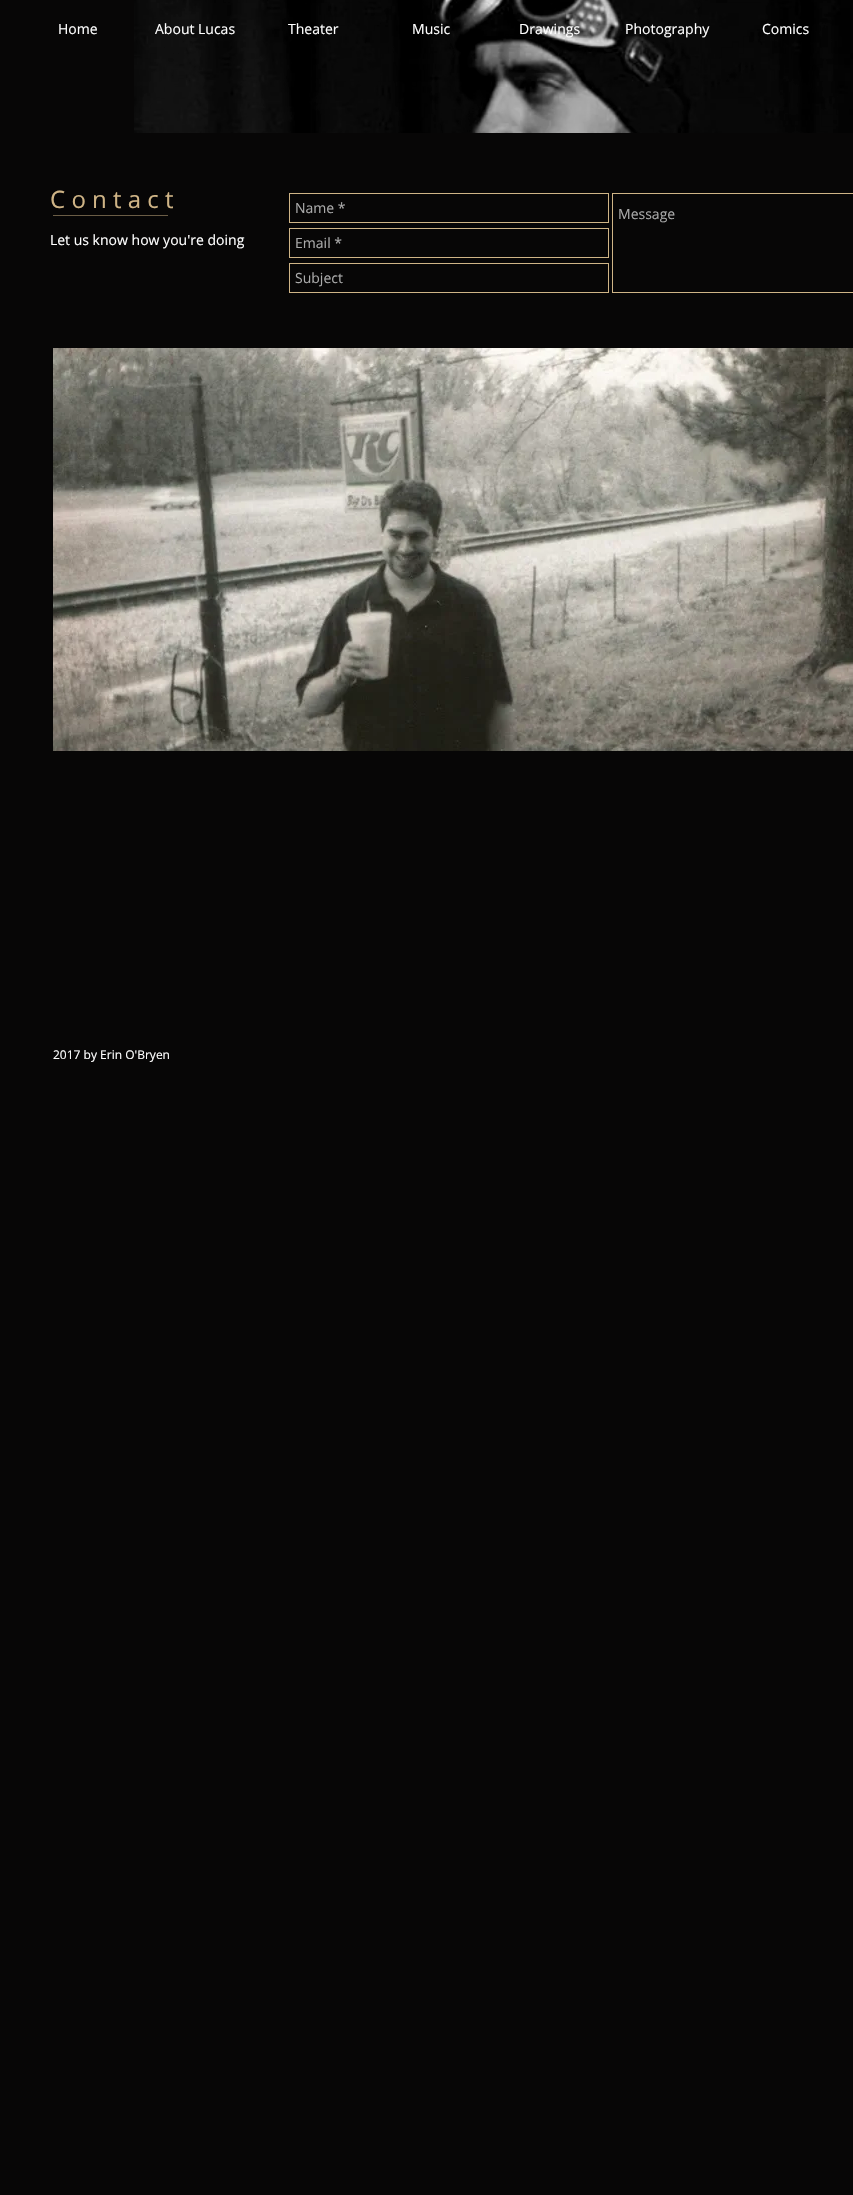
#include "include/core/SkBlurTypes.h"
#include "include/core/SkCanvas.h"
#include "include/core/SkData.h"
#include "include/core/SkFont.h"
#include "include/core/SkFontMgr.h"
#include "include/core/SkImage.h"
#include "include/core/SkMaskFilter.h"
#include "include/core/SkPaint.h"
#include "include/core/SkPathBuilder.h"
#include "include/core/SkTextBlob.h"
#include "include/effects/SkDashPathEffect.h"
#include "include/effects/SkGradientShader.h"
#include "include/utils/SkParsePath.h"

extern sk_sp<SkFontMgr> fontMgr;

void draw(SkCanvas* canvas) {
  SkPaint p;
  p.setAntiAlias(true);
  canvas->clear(SkColorSetRGB(7, 6, 6));
  canvas->drawImageRect(SkImages::DeferredFromEncodedData(SkData::MakeFromFileName("images/1.png")), SkRect::MakeLTRB(134, 0, 853, 133), SkSamplingOptions());
  p.setColor(SkColorSetRGB(107, 93, 70));
  canvas->drawRect(SkRect::MakeLTRB(53, 215, 168, 216), p);
  p.setStyle(SkPaint::kStroke_Style);
  p.setStrokeWidth(1);
  p.setColor(SkColorSetRGB(207, 180, 134));
  canvas->drawRect(SkRect::MakeLTRB(289.5f, 193.5f, 608.5f, 222.5f), p);
  canvas->drawRect(SkRect::MakeLTRB(612.5f, 193.5f, 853.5f, 292.5f), p);
  canvas->drawRect(SkRect::MakeLTRB(289.5f, 228.5f, 608.5f, 257.5f), p);
  canvas->drawRect(SkRect::MakeLTRB(289.5f, 263.5f, 608.5f, 292.5f), p);
  canvas->drawImageRect(SkImages::DeferredFromEncodedData(SkData::MakeFromFileName("images/2.png")), SkRect::MakeLTRB(53, 348, 853, 751), SkSamplingOptions());
  SkFont font1(fontMgr->matchFamilyStyle("Open Sans", SkFontStyle::Normal()), 14);
  font1.setSubpixel(true);
  p.setStyle(SkPaint::kFill_Style);
  p.setColor(SK_ColorWHITE);
  canvas->drawString("Home", 58, 34, font1, p);
  canvas->drawString("About Lucas", 155, 34, font1, p);
  canvas->drawString("Theater", 288, 34, font1, p);
  canvas->drawString("Music", 412, 34, font1, p);
  canvas->drawString("Drawings", 519, 34, font1, p);
  canvas->drawString("Photography", 625, 34, font1, p);
  canvas->drawString("Comics", 762, 34, font1, p);
  SkFont font2(fontMgr->matchFamilyStyle("Open Sans", SkFontStyle::Normal()), 24);
  font2.setSubpixel(true);
  p.setColor(SkColorSetRGB(207, 180, 134));
  canvas->drawString("C o n t a c t", 50, 208, font2, p);
  p.setColor(SkColorSetRGB(169, 169, 169));
  canvas->drawString("Name *", 295, 213, font1, p);
  canvas->drawString("Message", 618, 219, font1, p);
  canvas->drawString("Email *", 295, 248, font1, p);
  canvas->drawString("Subject", 295, 283, font1, p);
  p.setColor(SK_ColorWHITE);
  canvas->drawString("Let us know how you're doing", 50, 245, font1, p);
  SkFont font3(fontMgr->matchFamilyStyle("Open Sans", SkFontStyle::Normal()), 12);
  font3.setSubpixel(true);
  canvas->drawString("2017 by Erin O'Bryen", 53, 1059, font3, p);
}
